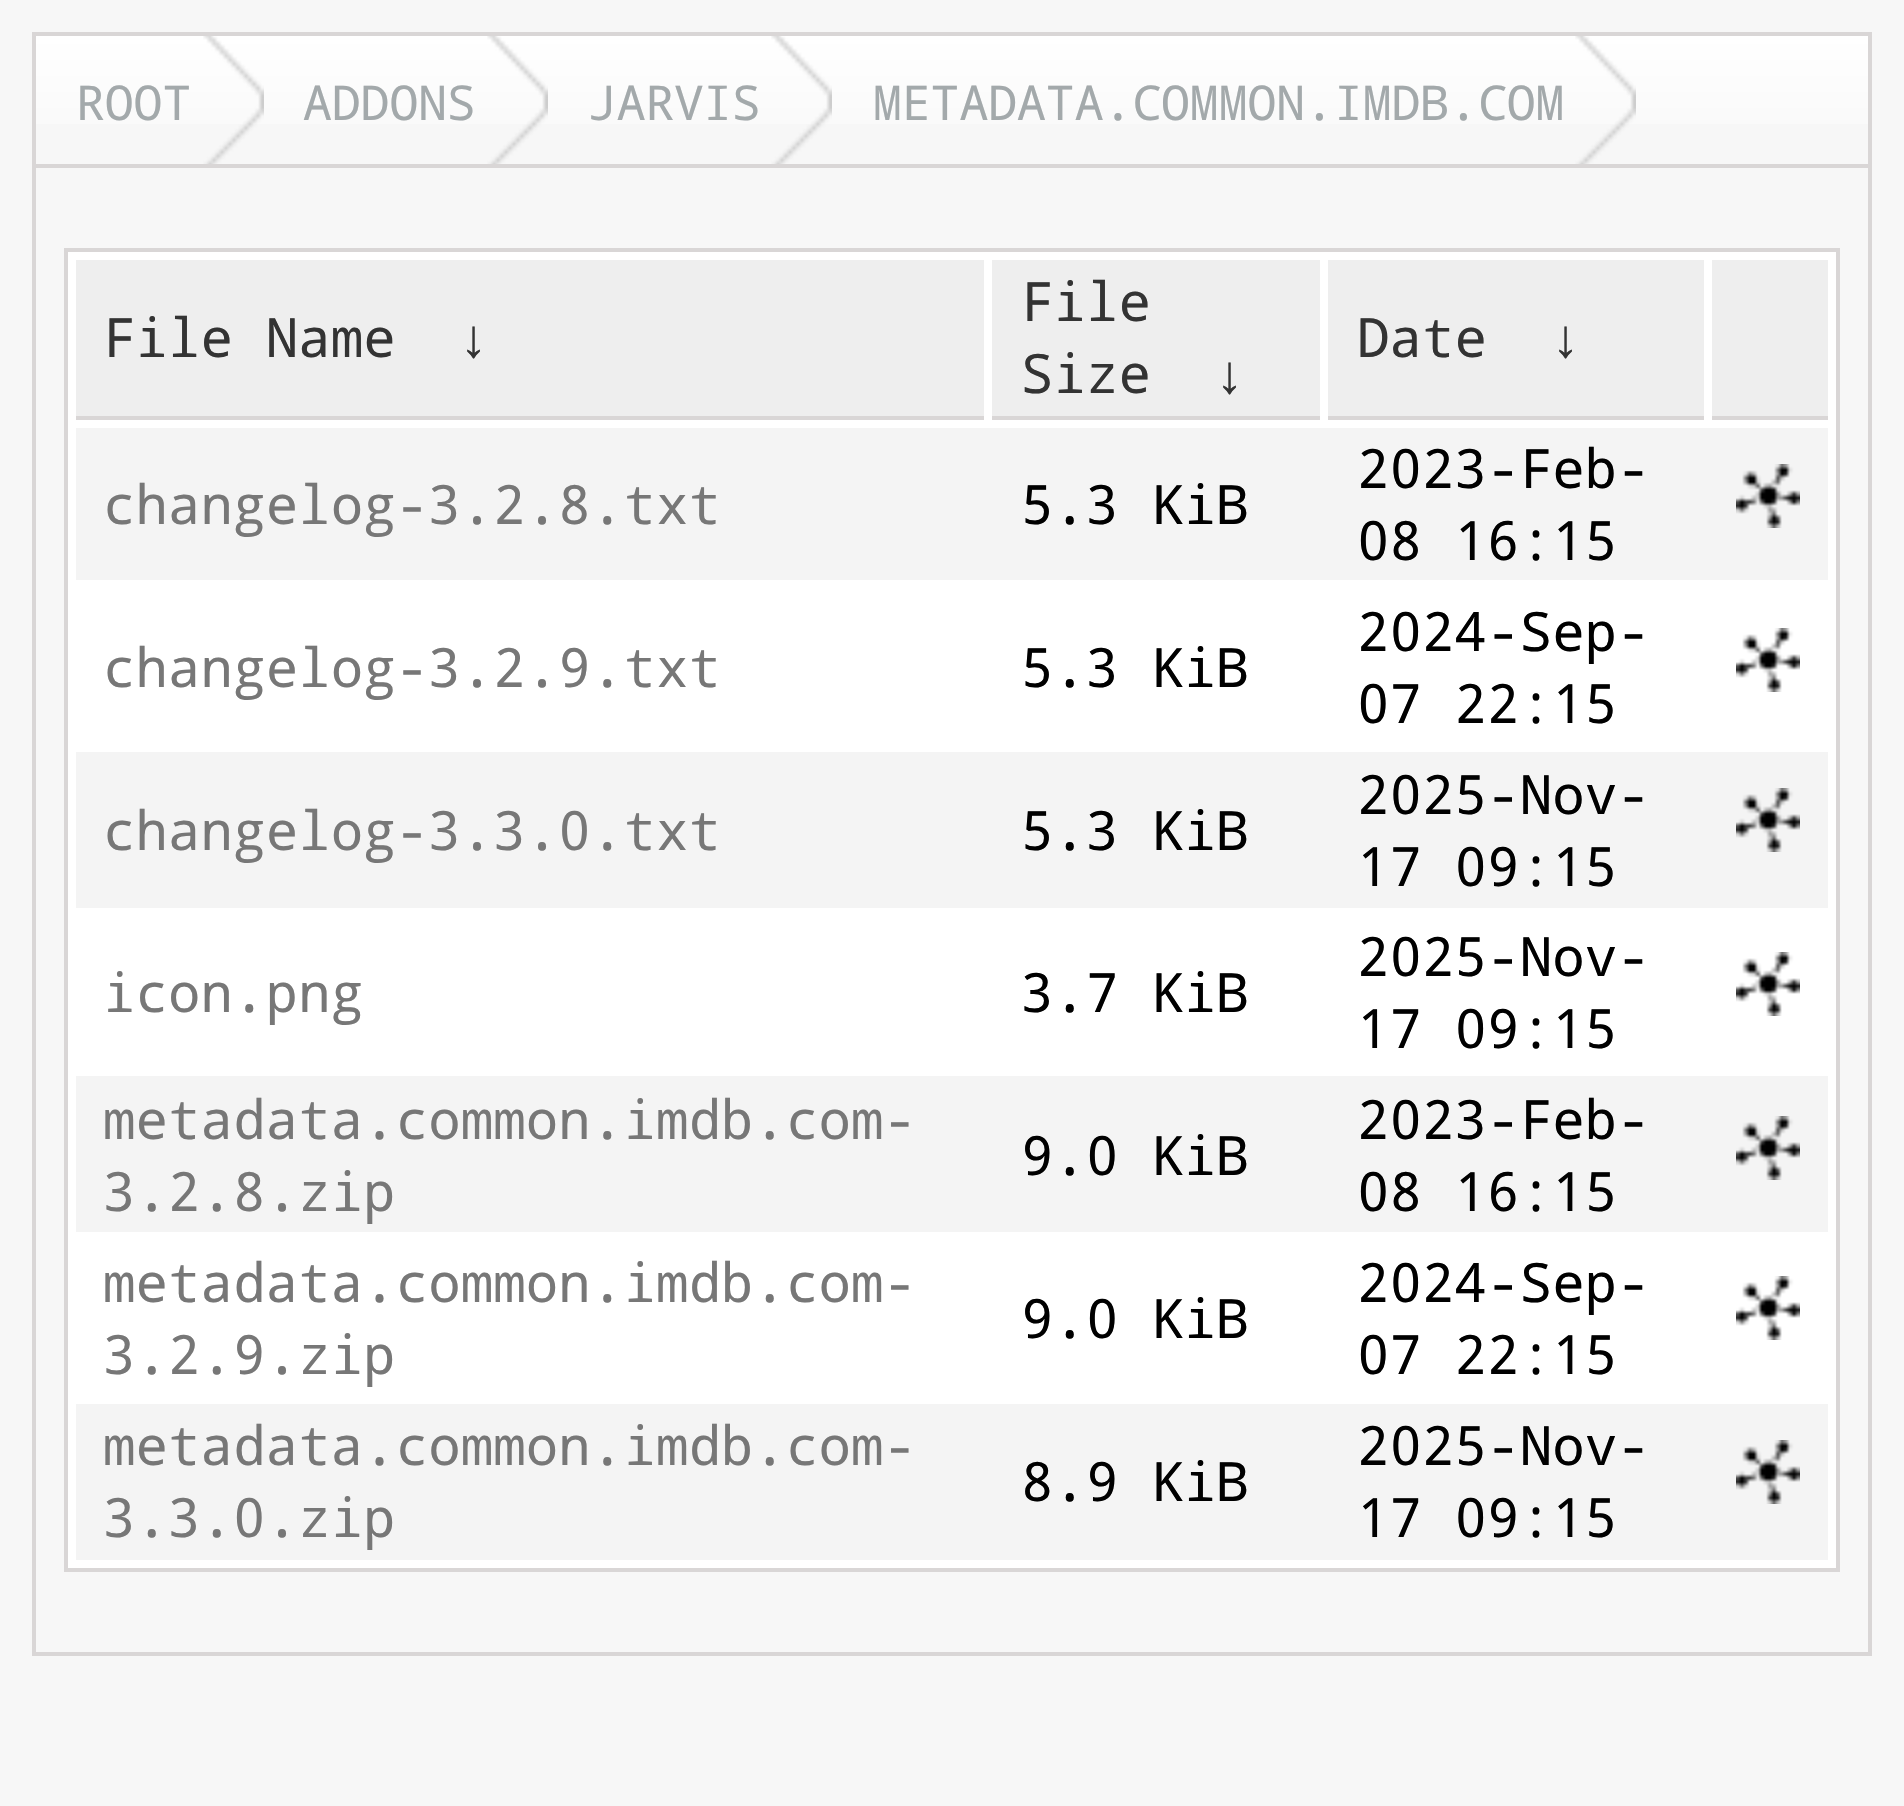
#include "include/core/SkBlurTypes.h"
#include "include/core/SkCanvas.h"
#include "include/core/SkData.h"
#include "include/core/SkFont.h"
#include "include/core/SkFontMgr.h"
#include "include/core/SkImage.h"
#include "include/core/SkMaskFilter.h"
#include "include/core/SkPaint.h"
#include "include/core/SkPathBuilder.h"
#include "include/core/SkTextBlob.h"
#include "include/effects/SkDashPathEffect.h"
#include "include/effects/SkGradientShader.h"
#include "include/utils/SkParsePath.h"

extern sk_sp<SkFontMgr> fontMgr;

void draw(SkCanvas* canvas) {
  SkPaint p;
  p.setAntiAlias(true);
  canvas->clear(SkColorSetRGB(247, 247, 247));
  p.setStyle(SkPaint::kStroke_Style);
  p.setStrokeWidth(4);
  p.setColor(SkColorSetRGB(217, 214, 214));
  canvas->drawRect(SkRect::MakeLTRB(34, 34, 1870, 1654), p);
  p.setStyle(SkPaint::kFill_Style);
  {
    const SkColor colors[] = {SK_ColorWHITE, SkColorSetRGB(247, 247, 247)};
    const float stops[] = {0, 1};
    const SkPoint ends[] = {{952, 36}, {952, 164}};
    p.setShader(SkGradientShader::MakeLinear(ends, colors, stops, 2, SkTileMode::kClamp));
    p.setAlpha(255);
  }
  canvas->drawRect(SkRect::MakeLTRB(36, 36, 1868, 124), p);
  p.setShader(nullptr);
  p.setColor(SkColorSetRGB(217, 214, 214));
  canvas->drawRect(SkRect::MakeLTRB(36, 164, 1868, 168), p);
  canvas->drawImageRect(SkImages::DeferredFromEncodedData(SkData::MakeFromFileName("images/1.png")), SkRect::MakeLTRB(203, 36, 264, 164), SkSamplingOptions());
  canvas->drawImageRect(SkImages::DeferredFromEncodedData(SkData::MakeFromFileName("images/1.png")), SkRect::MakeLTRB(487, 36, 548, 164), SkSamplingOptions());
  canvas->drawImageRect(SkImages::DeferredFromEncodedData(SkData::MakeFromFileName("images/1.png")), SkRect::MakeLTRB(771, 36, 832, 164), SkSamplingOptions());
  canvas->drawImageRect(SkImages::DeferredFromEncodedData(SkData::MakeFromFileName("images/1.png")), SkRect::MakeLTRB(1575, 36, 1636, 164), SkSamplingOptions());
  p.setColor(SK_ColorWHITE);
  canvas->drawRect(SkRect::MakeLTRB(66, 250, 1838, 1570), p);
  p.setStyle(SkPaint::kStroke_Style);
  p.setColor(SkColorSetRGB(217, 214, 214));
  canvas->drawRect(SkRect::MakeLTRB(66, 250, 1838, 1570), p);
  p.setStyle(SkPaint::kFill_Style);
  p.setColor(SkColorSetRGB(238, 238, 238));
  canvas->drawRect(SkRect::MakeLTRB(76, 260, 984, 416), p);
  p.setColor(SkColorSetRGB(217, 214, 214));
  canvas->drawRect(SkRect::MakeLTRB(76, 416, 984, 420), p);
  p.setColor(SkColorSetRGB(238, 238, 238));
  canvas->drawRect(SkRect::MakeLTRB(992, 260, 1320, 416), p);
  p.setColor(SkColorSetRGB(217, 214, 214));
  canvas->drawRect(SkRect::MakeLTRB(992, 416, 1320, 420), p);
  p.setColor(SkColorSetRGB(238, 238, 238));
  canvas->drawRect(SkRect::MakeLTRB(1328, 260, 1704, 416), p);
  p.setColor(SkColorSetRGB(217, 214, 214));
  canvas->drawRect(SkRect::MakeLTRB(1328, 416, 1704, 420), p);
  p.setColor(SkColorSetRGB(238, 238, 238));
  canvas->drawRect(SkRect::MakeLTRB(1712, 260, 1828, 416), p);
  p.setColor(SkColorSetRGB(217, 214, 214));
  canvas->drawRect(SkRect::MakeLTRB(1712, 416, 1828, 420), p);
  p.setColor(SkColorSetRGB(244, 244, 244));
  canvas->drawRect(SkRect::MakeLTRB(76, 428, 1828, 580), p);
  canvas->drawImageRect(SkImages::DeferredFromEncodedData(SkData::MakeFromFileName("images/2.png")), SkRect::MakeLTRB(1736, 464, 1800, 528), SkSamplingOptions());
  canvas->drawImageRect(SkImages::DeferredFromEncodedData(SkData::MakeFromFileName("images/3.png")), SkRect::MakeLTRB(1736, 628, 1800, 692), SkSamplingOptions());
  canvas->drawRect(SkRect::MakeLTRB(76, 752, 1828, 908), p);
  canvas->drawImageRect(SkImages::DeferredFromEncodedData(SkData::MakeFromFileName("images/2.png")), SkRect::MakeLTRB(1736, 788, 1800, 852), SkSamplingOptions());
  canvas->drawImageRect(SkImages::DeferredFromEncodedData(SkData::MakeFromFileName("images/3.png")), SkRect::MakeLTRB(1736, 952, 1800, 1016), SkSamplingOptions());
  canvas->drawRect(SkRect::MakeLTRB(76, 1076, 1828, 1232), p);
  canvas->drawImageRect(SkImages::DeferredFromEncodedData(SkData::MakeFromFileName("images/2.png")), SkRect::MakeLTRB(1736, 1116, 1800, 1180), SkSamplingOptions());
  canvas->drawImageRect(SkImages::DeferredFromEncodedData(SkData::MakeFromFileName("images/3.png")), SkRect::MakeLTRB(1736, 1276, 1800, 1340), SkSamplingOptions());
  canvas->drawRect(SkRect::MakeLTRB(76, 1404, 1828, 1560), p);
  canvas->drawImageRect(SkImages::DeferredFromEncodedData(SkData::MakeFromFileName("images/2.png")), SkRect::MakeLTRB(1736, 1440, 1800, 1504), SkSamplingOptions());
  SkFont font1(fontMgr->matchFamilyStyle("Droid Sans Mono", SkFontStyle::Normal()), 48);
  font1.setSubpixel(true);
  p.setColor(SkColorSetRGB(163, 169, 171));
  canvas->drawString("ROOT", 76, 120, font1, p);
  canvas->drawString("ADDONS", 303, 120, font1, p);
  canvas->drawString("JARVIS", 588, 120, font1, p);
  canvas->drawString("METADATA.COMMON.IMDB.COM", 873, 120, font1, p);
  SkFont font2(fontMgr->matchFamilyStyle("Droid Sans Mono", SkFontStyle::Normal()), 54.2f);
  font2.setSubpixel(true);
  p.setColor(SkColorSetRGB(51, 51, 51));
  canvas->drawString("File Name", 103, 357, font2, p);
  SkFont font3(fontMgr->matchFamilyStyle("Liberation Serif", SkFontStyle::Normal()), 54.2f);
  font3.setSubpixel(true);
  canvas->drawString("↓", 460, 357, font3, p);
  canvas->drawString("File", 1021, 321, font2, p);
  canvas->drawString("Size", 1021, 393, font2, p);
  canvas->drawString("↓", 1216, 393, font3, p);
  canvas->drawString("Date", 1357, 357, font2, p);
  canvas->drawString("↓", 1552, 357, font3, p);
  p.setColor(SkColorSetRGB(119, 119, 119));
  canvas->drawString("changelog-3.2.8.txt", 103, 524, font2, p);
  p.setColor(SK_ColorBLACK);
  canvas->drawString("5.3 KiB", 1021, 524, font2, p);
  canvas->drawString("2023-Feb-", 1357, 488, font2, p);
  canvas->drawString("08 16:15", 1357, 560, font2, p);
  p.setColor(SkColorSetRGB(119, 119, 119));
  canvas->drawString("changelog-3.2.9.txt", 103, 687, font2, p);
  p.setColor(SK_ColorBLACK);
  canvas->drawString("5.3 KiB", 1021, 687, font2, p);
  canvas->drawString("2024-Sep-", 1357, 651, font2, p);
  canvas->drawString("07 22:15", 1357, 723, font2, p);
  p.setColor(SkColorSetRGB(119, 119, 119));
  canvas->drawString("changelog-3.3.0.txt", 103, 850, font2, p);
  p.setColor(SK_ColorBLACK);
  canvas->drawString("5.3 KiB", 1021, 850, font2, p);
  canvas->drawString("2025-Nov-", 1357, 814, font2, p);
  canvas->drawString("17 09:15", 1357, 886, font2, p);
  p.setColor(SkColorSetRGB(119, 119, 119));
  canvas->drawString("icon.png", 103, 1012, font2, p);
  p.setColor(SK_ColorBLACK);
  canvas->drawString("3.7 KiB", 1021, 1012, font2, p);
  canvas->drawString("2025-Nov-", 1357, 976, font2, p);
  canvas->drawString("17 09:15", 1357, 1048, font2, p);
  p.setColor(SkColorSetRGB(119, 119, 119));
  canvas->drawString("metadata.common.imdb.com-", 103, 1139, font2, p);
  canvas->drawString("3.2.8.zip", 103, 1211, font2, p);
  p.setColor(SK_ColorBLACK);
  canvas->drawString("9.0 KiB", 1021, 1175, font2, p);
  canvas->drawString("2023-Feb-", 1357, 1139, font2, p);
  canvas->drawString("08 16:15", 1357, 1211, font2, p);
  p.setColor(SkColorSetRGB(119, 119, 119));
  canvas->drawString("metadata.common.imdb.com-", 103, 1302, font2, p);
  canvas->drawString("3.2.9.zip", 103, 1374, font2, p);
  p.setColor(SK_ColorBLACK);
  canvas->drawString("9.0 KiB", 1021, 1338, font2, p);
  canvas->drawString("2024-Sep-", 1357, 1302, font2, p);
  canvas->drawString("07 22:15", 1357, 1374, font2, p);
  p.setColor(SkColorSetRGB(119, 119, 119));
  canvas->drawString("metadata.common.imdb.com-", 103, 1465, font2, p);
  canvas->drawString("3.3.0.zip", 103, 1537, font2, p);
  p.setColor(SK_ColorBLACK);
  canvas->drawString("8.9 KiB", 1021, 1501, font2, p);
  canvas->drawString("2025-Nov-", 1357, 1465, font2, p);
  canvas->drawString("17 09:15", 1357, 1537, font2, p);
}
